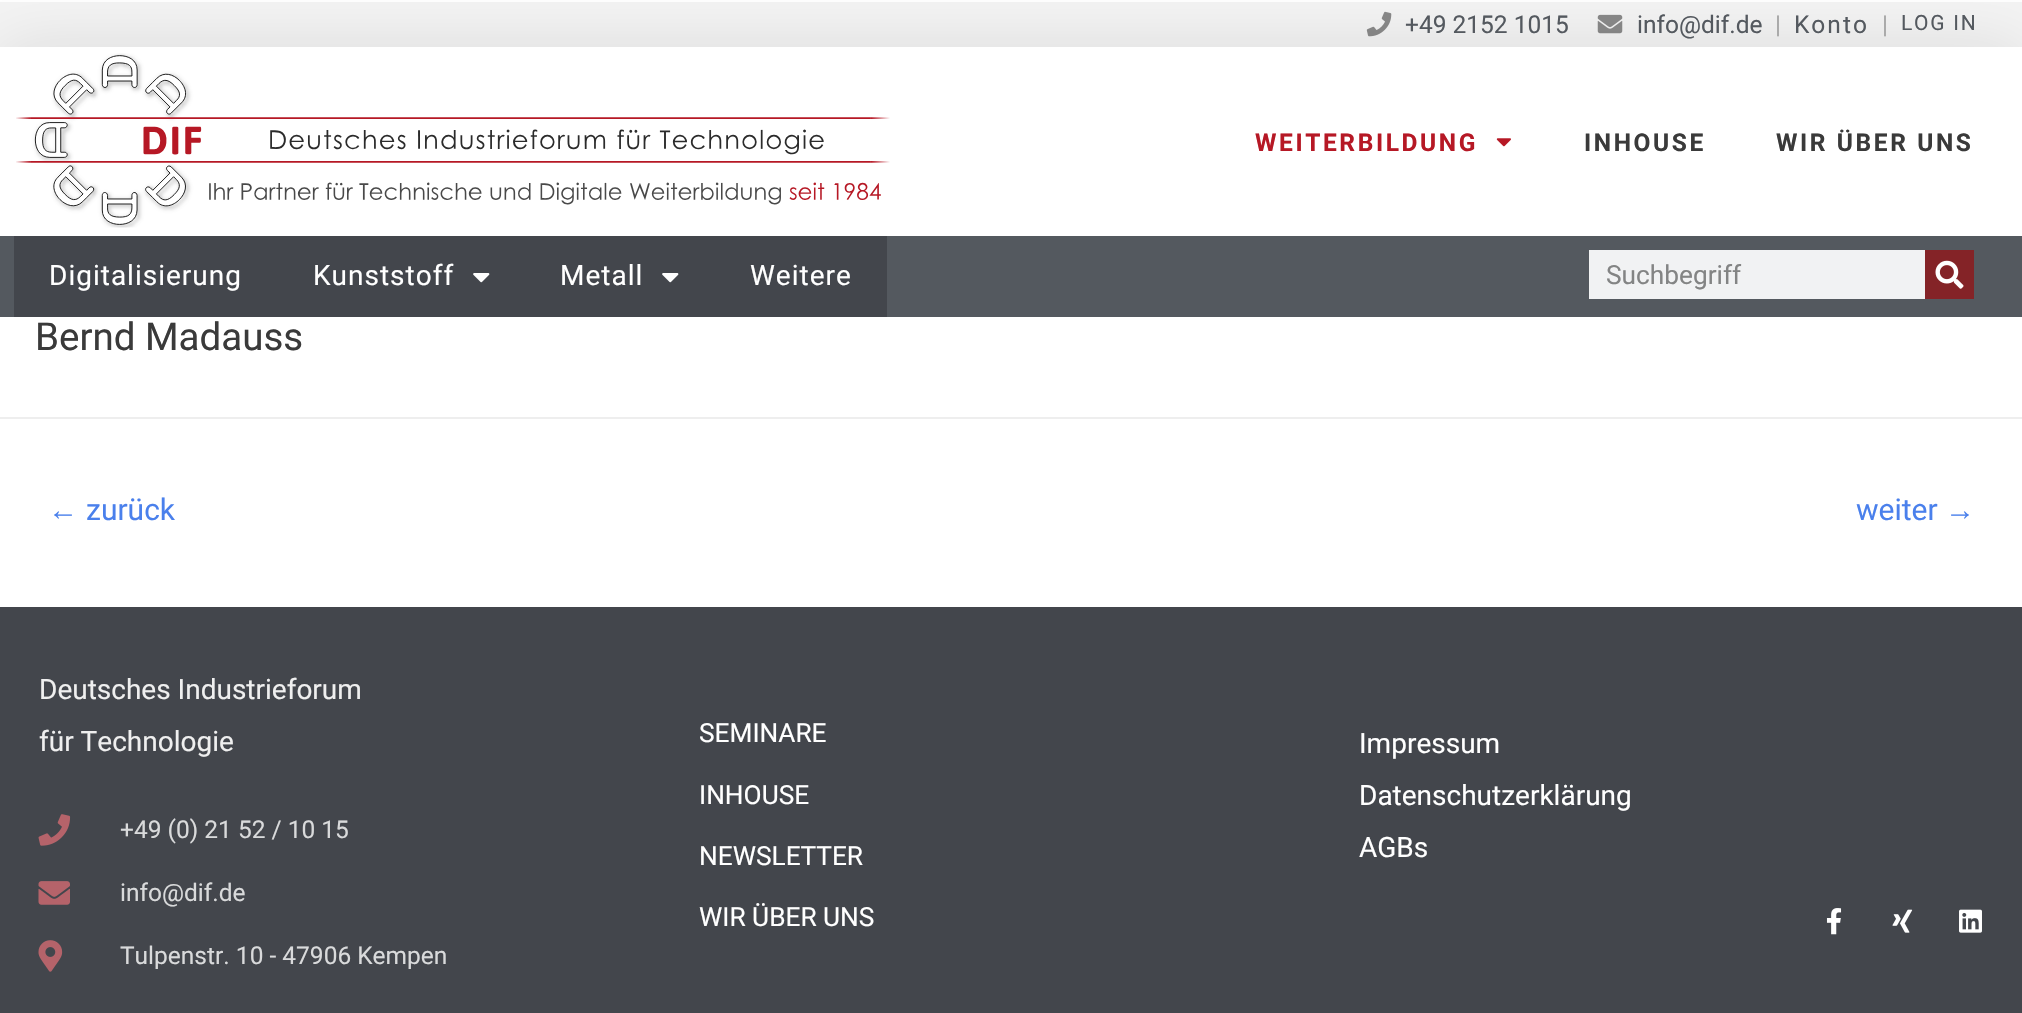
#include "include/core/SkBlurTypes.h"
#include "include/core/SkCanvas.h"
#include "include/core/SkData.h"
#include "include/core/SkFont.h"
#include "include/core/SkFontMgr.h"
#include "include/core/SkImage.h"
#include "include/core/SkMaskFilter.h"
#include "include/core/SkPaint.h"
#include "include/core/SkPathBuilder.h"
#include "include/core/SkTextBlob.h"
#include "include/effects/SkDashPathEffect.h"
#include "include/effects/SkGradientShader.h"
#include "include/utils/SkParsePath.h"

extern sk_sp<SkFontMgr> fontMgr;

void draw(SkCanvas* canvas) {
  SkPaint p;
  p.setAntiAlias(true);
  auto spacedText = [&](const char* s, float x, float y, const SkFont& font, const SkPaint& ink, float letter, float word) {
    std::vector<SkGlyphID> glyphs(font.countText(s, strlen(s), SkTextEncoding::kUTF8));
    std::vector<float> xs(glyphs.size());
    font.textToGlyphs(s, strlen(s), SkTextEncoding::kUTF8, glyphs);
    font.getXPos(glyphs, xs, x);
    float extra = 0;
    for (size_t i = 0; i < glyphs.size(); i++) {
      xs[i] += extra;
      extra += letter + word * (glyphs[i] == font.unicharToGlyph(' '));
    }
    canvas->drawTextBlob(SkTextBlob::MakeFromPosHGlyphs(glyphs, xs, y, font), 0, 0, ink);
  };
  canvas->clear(SK_ColorWHITE);
  p.setColor(SkColorSetRGB(244, 244, 244));
  canvas->drawRect(SkRect::MakeLTRB(0, 2, 2022, 47), p);
  canvas->drawImageRect(SkImages::DeferredFromEncodedData(SkData::MakeFromFileName("images/1.png")), SkRect::MakeLTRB(1366, 11, 1392, 37), SkSamplingOptions());
  canvas->drawImageRect(SkImages::DeferredFromEncodedData(SkData::MakeFromFileName("images/2.png")), SkRect::MakeLTRB(1597, 14, 1623, 34), SkSamplingOptions());
  p.setColor(SkColorSetARGB(26, 0, 0, 0));
  p.setMaskFilter(SkMaskFilter::MakeBlur(kNormal_SkBlurStyle, 33));
  canvas->drawRect(SkRect::MakeLTRB(0, 47, 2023, 236), p);
  p.setMaskFilter(nullptr);
  p.setColor(SK_ColorWHITE);
  canvas->drawRect(SkRect::MakeLTRB(0, 47, 2022, 236), p);
  canvas->drawImageRect(SkImages::DeferredFromEncodedData(SkData::MakeFromFileName("images/3.png")), SkRect::MakeLTRB(16, 53, 890, 228), SkSamplingOptions());
  canvas->drawImageRect(SkImages::DeferredFromEncodedData(SkData::MakeFromFileName("images/4.png")), SkRect::MakeLTRB(1496, 138, 1511, 147), SkSamplingOptions());
  p.setColor(SkColorSetRGB(84, 89, 95));
  canvas->drawRect(SkRect::MakeLTRB(0, 236, 2022, 317), p);
  p.setColor(SkColorSetRGB(67, 70, 76));
  canvas->drawRect(SkRect::MakeLTRB(14, 236, 887, 317), p);
  canvas->drawImageRect(SkImages::DeferredFromEncodedData(SkData::MakeFromFileName("images/5.png")), SkRect::MakeLTRB(473, 273, 490, 283), SkSamplingOptions());
  canvas->drawImageRect(SkImages::DeferredFromEncodedData(SkData::MakeFromFileName("images/5.png")), SkRect::MakeLTRB(662, 273, 679, 283), SkSamplingOptions());
  p.setColor(SkColorSetRGB(241, 242, 243));
  canvas->drawRect(SkRect::MakeLTRB(1589, 250, 1925, 299), p);
  p.setColor(SkColorSetRGB(132, 35, 39));
  canvas->drawRect(SkRect::MakeLTRB(1925, 250, 1974, 299), p);
  canvas->drawImageRect(SkImages::DeferredFromEncodedData(SkData::MakeFromFileName("images/6.png")), SkRect::MakeLTRB(1935, 260, 1964, 289), SkSamplingOptions());
  p.setColor(SkColorSetRGB(238, 238, 238));
  canvas->drawRect(SkRect::MakeLTRB(0, 417, 2022, 419), p);
  p.setColor(SkColorSetRGB(67, 70, 76));
  canvas->drawRect(SkRect::MakeLTRB(0, 607, 2022, 1013), p);
  canvas->drawImageRect(SkImages::DeferredFromEncodedData(SkData::MakeFromFileName("images/7.png")), SkRect::MakeLTRB(38, 814, 71, 846), SkSamplingOptions());
  canvas->drawImageRect(SkImages::DeferredFromEncodedData(SkData::MakeFromFileName("images/8.png")), SkRect::MakeLTRB(38, 881, 70, 905), SkSamplingOptions());
  canvas->drawImageRect(SkImages::DeferredFromEncodedData(SkData::MakeFromFileName("images/9.png")), SkRect::MakeLTRB(38, 940, 63, 972), SkSamplingOptions());
  canvas->drawImageRect(SkImages::DeferredFromEncodedData(SkData::MakeFromFileName("images/10.png")), SkRect::MakeLTRB(1826, 908, 1842, 935), SkSamplingOptions());
  canvas->drawImageRect(SkImages::DeferredFromEncodedData(SkData::MakeFromFileName("images/11.png")), SkRect::MakeLTRB(1892, 909, 1913, 933), SkSamplingOptions());
  canvas->drawImageRect(SkImages::DeferredFromEncodedData(SkData::MakeFromFileName("images/12.png")), SkRect::MakeLTRB(1959, 909, 1982, 933), SkSamplingOptions());
  SkFont font1(fontMgr->matchFamilyStyle("Roboto", SkFontStyle::Normal()), 24.5f);
  font1.setSubpixel(true);
  p.setColor(SkColorSetRGB(84, 89, 95));
  canvas->drawString("+49 2152 1015", 1405, 33, font1, p);
  canvas->drawString("info@dif.de", 1637, 33, font1, p);
  p.setColor(SkColorSetRGB(165, 165, 165));
  canvas->drawString("|", 1775, 33, font1, p);
  p.setColor(SkColorSetRGB(84, 89, 95));
  spacedText("Konto", 1794, 33, font1, p, 2, 0);
  p.setColor(SkColorSetRGB(165, 165, 165));
  canvas->drawString("|", 1882, 33, font1, p);
  SkFont font2(fontMgr->matchFamilyStyle("Roboto", SkFontStyle::Normal()), 21);
  font2.setSubpixel(true);
  p.setColor(SkColorSetRGB(84, 89, 95));
  spacedText("LOG IN", 1901, 30, font2, p, 1.75f, 0);
  SkFont font3(fontMgr->matchFamilyStyle("Roboto", SkFontStyle::Bold()), 24.5f);
  font3.setSubpixel(true);
  p.setColor(SkColorSetRGB(182, 24, 37));
  spacedText("WEITERBILDUNG", 1255, 151, font3, p, 2.6f, 0);
  p.setColor(SkColorSetRGB(58, 58, 58));
  spacedText("INHOUSE", 1584, 151, font3, p, 2.6f, 0);
  spacedText("WIR ÜBER UNS", 1776, 151, font3, p, 2.6f, 0);
  SkFont font4(fontMgr->matchFamilyStyle("Roboto", SkFontStyle::Normal()), 28);
  font4.setSubpixel(true);
  p.setColor(SK_ColorWHITE);
  spacedText("Digitalisierung", 49, 285, font4, p, 1, 0);
  spacedText("Kunststoff", 313, 285, font4, p, 1, 0);
  spacedText("Metall", 560, 285, font4, p, 1, 0);
  spacedText("Weitere", 750, 285, font4, p, 1, 0);
  SkFont font5(fontMgr->matchFamilyStyle("Roboto", SkFontStyle::Normal()), 26.25f);
  font5.setSubpixel(true);
  p.setColor(SkColorSetRGB(131, 132, 132));
  canvas->drawString("Suchbegriff", 1606, 284, font5, p);
  SkFont font6(fontMgr->matchFamilyStyle("Roboto", SkFontStyle::Normal()), 38.5f);
  font6.setSubpixel(true);
  p.setColor(SkColorSetRGB(58, 58, 58));
  canvas->drawString("Bernd Madauss", 35, 350, font6, p);
  SkFont font7(fontMgr->matchFamilyStyle("Liberation Sans", SkFontStyle::Normal()), 30);
  font7.setSubpixel(true);
  p.setColor(SkColorSetRGB(74, 128, 236));
  canvas->drawString("←", 48, 520, font7, p);
  SkFont font8(fontMgr->matchFamilyStyle("Roboto", SkFontStyle::Normal()), 30);
  font8.setSubpixel(true);
  canvas->drawString("zurück", 86, 520, font8, p);
  canvas->drawString("weiter", 1856, 520, font8, p);
  canvas->drawString("→", 1945, 520, font7, p);
  p.setColor(SkColorSetRGB(239, 239, 239));
  canvas->drawString("Deutsches Industrieforum", 39, 699, font4, p);
  canvas->drawString("für Technologie", 39, 751, font4, p);
  p.setColor(SkColorSetRGB(217, 218, 219));
  canvas->drawString("+49 (0) 21 52 / 10 15", 120, 838, font1, p);
  canvas->drawString("info@dif.de", 120, 901, font1, p);
  canvas->drawString("Tulpenstr. 10 - 47906 Kempen", 120, 964, font1, p);
  p.setColor(SK_ColorWHITE);
  canvas->drawString("SEMINARE", 699, 742, font5, p);
  canvas->drawString("INHOUSE", 699, 804, font5, p);
  canvas->drawString("NEWSLETTER", 699, 865, font5, p);
  canvas->drawString("WIR ÜBER UNS", 699, 926, font5, p);
  canvas->drawString("Impressum", 1359, 753, font4, p);
  canvas->drawString("Datenschutzerklärung", 1359, 805, font4, p);
  canvas->drawString("AGBs", 1359, 857, font4, p);
}
